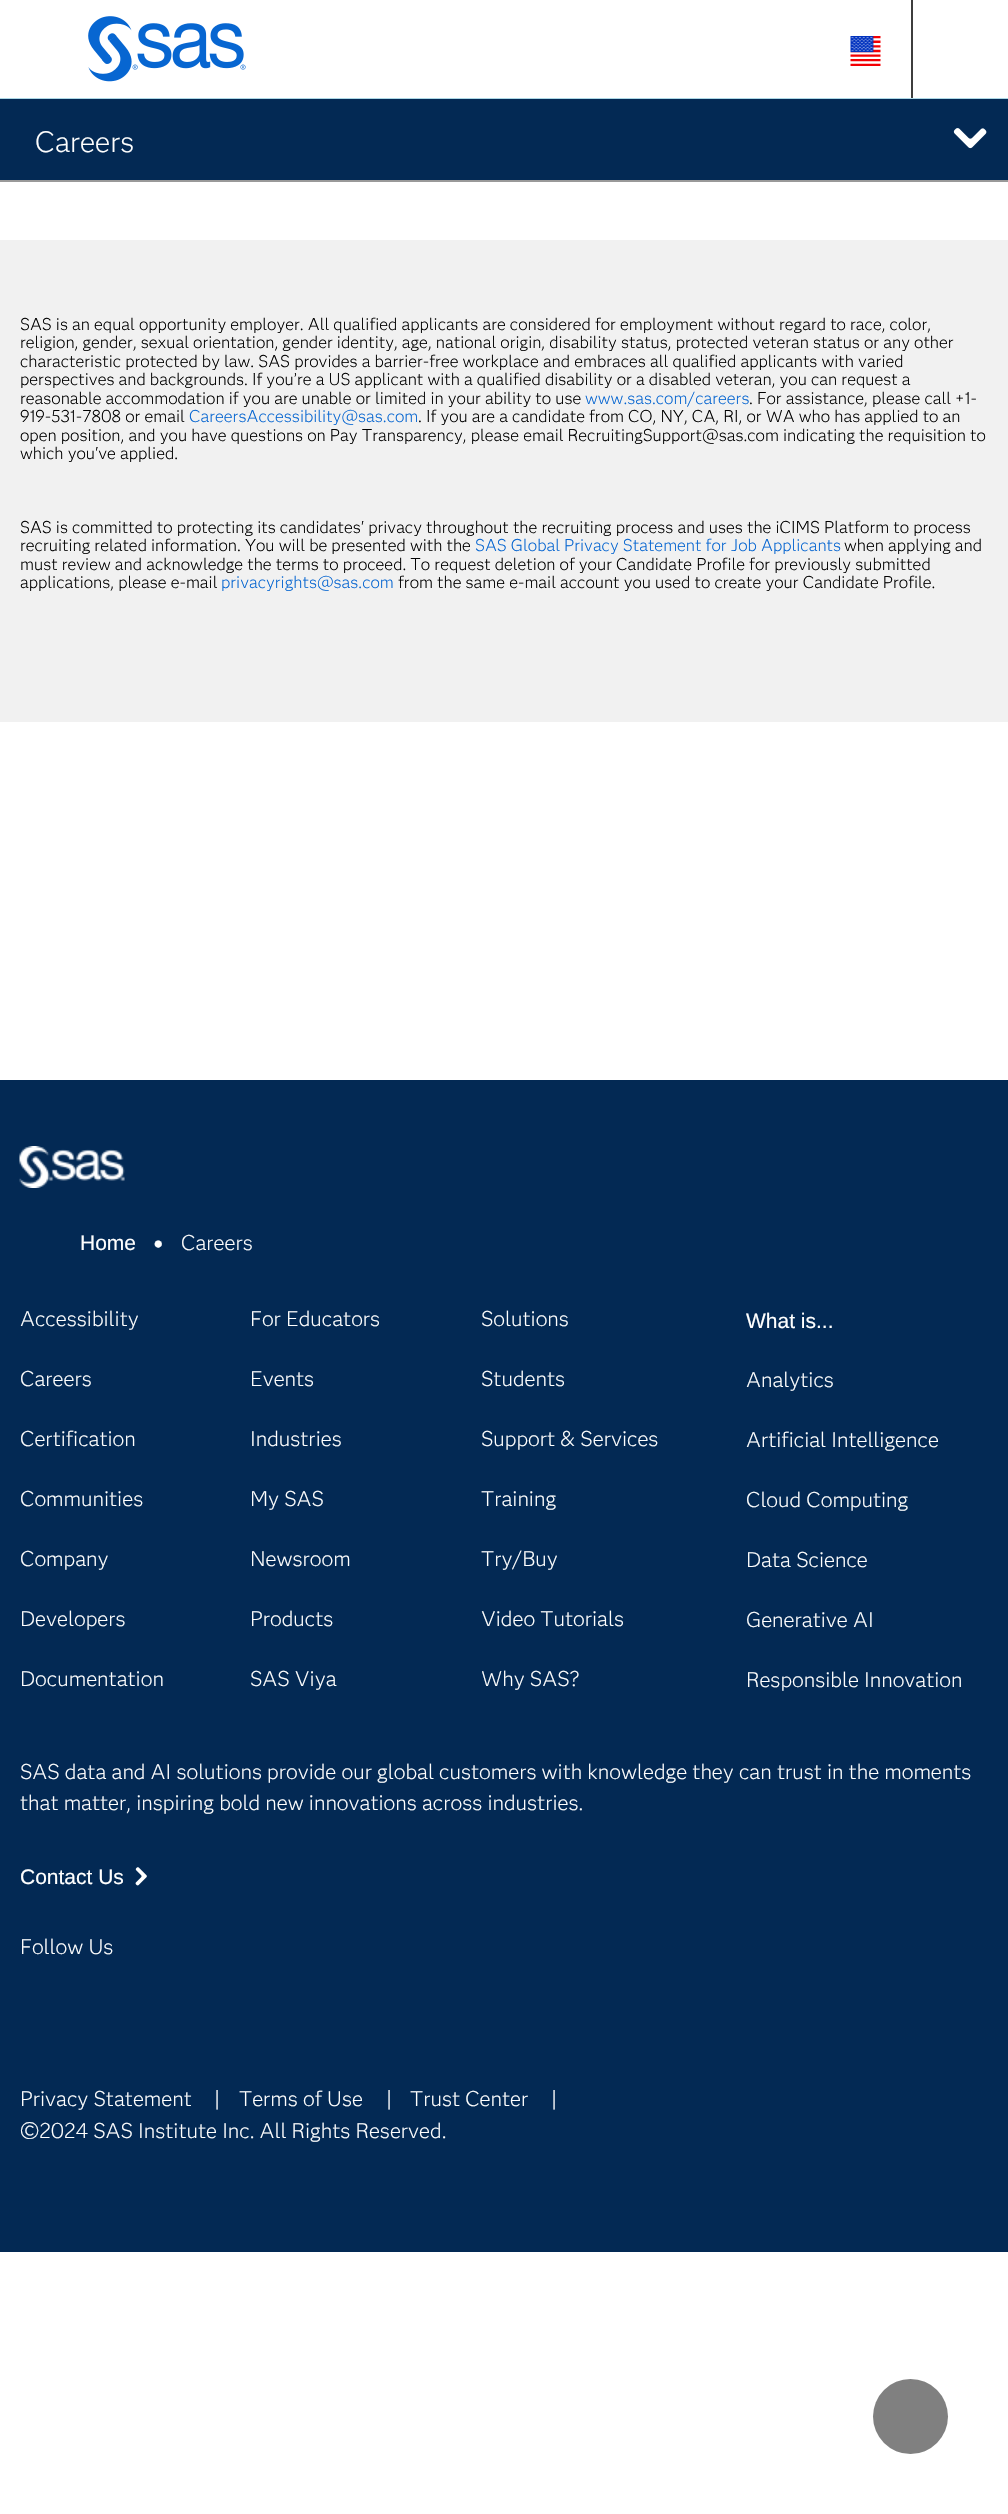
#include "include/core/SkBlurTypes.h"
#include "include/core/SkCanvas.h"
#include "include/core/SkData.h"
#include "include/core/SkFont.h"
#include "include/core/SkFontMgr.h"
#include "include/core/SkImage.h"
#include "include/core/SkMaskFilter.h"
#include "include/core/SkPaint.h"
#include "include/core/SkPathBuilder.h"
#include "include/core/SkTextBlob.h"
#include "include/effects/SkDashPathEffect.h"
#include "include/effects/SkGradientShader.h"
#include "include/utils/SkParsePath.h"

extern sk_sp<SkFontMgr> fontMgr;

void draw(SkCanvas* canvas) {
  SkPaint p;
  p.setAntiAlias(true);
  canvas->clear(SK_ColorWHITE);
  p.setColor(SkColorSetRGB(173, 216, 230));
  canvas->drawRect(SkRect::MakeLTRB(0, 98, 1008, 99), p);
  canvas->drawImageRect(SkImages::DeferredFromEncodedData(SkData::MakeFromFileName("images/1.png")), SkRect::MakeLTRB(88, 16, 246, 82), SkSamplingOptions());
  canvas->drawImageRect(SkImages::DeferredFromEncodedData(SkData::MakeFromFileName("images/2.png")), SkRect::MakeLTRB(850, 36, 881, 66), SkSamplingOptions());
  p.setColor(SkColorSetRGB(62, 62, 62));
  canvas->drawRect(SkRect::MakeLTRB(911, 0, 913, 98), p);
  p.setColor(SkColorSetRGB(153, 153, 153));
  canvas->drawRect(SkRect::MakeLTRB(0, 180, 1008, 182), p);
  p.setColor(SkColorSetRGB(3, 41, 84));
  canvas->drawRect(SkRect::MakeLTRB(0, 99, 1008, 180), p);
  canvas->drawImageRect(SkImages::DeferredFromEncodedData(SkData::MakeFromFileName("images/3.png")), SkRect::MakeLTRB(953, 128, 987, 149), SkSamplingOptions());
  p.setColor(SkColorSetRGB(241, 241, 241));
  canvas->drawRect(SkRect::MakeLTRB(0, 240, 1008, 722), p);
  p.setColor(SkColorSetRGB(3, 41, 84));
  canvas->drawRect(SkRect::MakeLTRB(0, 1080, 1008, 2252), p);
  canvas->drawImageRect(SkImages::DeferredFromEncodedData(SkData::MakeFromFileName("images/4.png")), SkRect::MakeLTRB(19, 1146, 125, 1188), SkSamplingOptions());
  canvas->drawImageRect(SkImages::DeferredFromEncodedData(SkData::MakeFromFileName("images/5.png")), SkRect::MakeLTRB(135, 1867, 147, 1886), SkSamplingOptions());
  p.setColor(SkColorSetRGB(128, 128, 128));
  canvas->drawCircle(910.5f, 2416.5f, 37.5f, p);
  SkFont font1(fontMgr->matchFamilyStyle("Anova", SkFontStyle(300, SkFontStyle::kNormal_Width, SkFontStyle::kUpright_Slant)), 29);
  font1.setSubpixel(true);
  p.setColor(SK_ColorWHITE);
  canvas->drawString("Careers", 35, 152, font1, p);
  SkFont font2(fontMgr->matchFamilyStyle("Anova", SkFontStyle(300, SkFontStyle::kNormal_Width, SkFontStyle::kUpright_Slant)), 16.8f);
  font2.setSubpixel(true);
  p.setColor(SK_ColorBLACK);
  canvas->drawString("SAS is an equal opportunity employer. All qualified applicants are considered for employment without regard to race, color,", 20, 330, font2, p);
  canvas->drawString("religion, gender, sexual orientation, gender identity, age, national origin, disability status, protected veteran status or any other", 20, 348, font2, p);
  canvas->drawString("characteristic protected by law. SAS provides a barrier-free workplace and embraces all qualified applicants with varied", 20, 367, font2, p);
  canvas->drawString("perspectives and backgrounds. If you’re a US applicant with a qualified disability or a disabled veteran, you can request a", 20, 385, font2, p);
  canvas->drawString("reasonable accommodation if you are unable or limited in your ability to use", 20, 404, font2, p);
  p.setColor(SkColorSetRGB(7, 102, 209));
  canvas->drawString("www.sas.com/careers", 585, 404, font2, p);
  p.setColor(SK_ColorBLACK);
  canvas->drawString(". For assistance, please call +1-", 749, 404, font2, p);
  canvas->drawString("919-531-7808 or email", 20, 422, font2, p);
  p.setColor(SkColorSetRGB(7, 102, 209));
  canvas->drawString("CareersAccessibility@sas.com", 189, 422, font2, p);
  p.setColor(SK_ColorBLACK);
  canvas->drawString(". If you are a candidate from CO, NY, CA, RI, or WA who has applied to an", 418, 422, font2, p);
  canvas->drawString("open position, and you have questions on Pay Transparency, please email RecruitingSupport@sas.com indicating the requisition to", 20, 441, font2, p);
  canvas->drawString("which you've applied.", 20, 459, font2, p);
  canvas->drawString("SAS is committed to protecting its candidates' privacy throughout the recruiting process and uses the iCIMS Platform to process", 20, 533, font2, p);
  canvas->drawString("recruiting related information. You will be presented with the", 20, 551, font2, p);
  p.setColor(SkColorSetRGB(7, 102, 209));
  canvas->drawString("SAS Global Privacy Statement for Job Applicants", 475, 551, font2, p);
  p.setColor(SK_ColorBLACK);
  canvas->drawString("when applying and", 844, 551, font2, p);
  canvas->drawString("must review and acknowledge the terms to proceed. To request deletion of your Candidate Profile for previously submitted", 20, 570, font2, p);
  canvas->drawString("applications, please e-mail", 20, 588, font2, p);
  p.setColor(SkColorSetRGB(7, 102, 209));
  canvas->drawString("privacyrights@sas.com", 221, 588, font2, p);
  p.setColor(SK_ColorBLACK);
  canvas->drawString("from the same e-mail account you used to create your Candidate Profile.", 398, 588, font2, p);
  SkFont font3(fontMgr->matchFamilyStyle("Liberation Sans", SkFontStyle::Normal()), 21);
  font3.setSubpixel(true);
  p.setColor(SK_ColorWHITE);
  canvas->drawString("Home", 80, 1250, font3, p);
  SkFont font4(fontMgr->matchFamilyStyle("Liberation Serif", SkFontStyle::Normal()), 30);
  font4.setSubpixel(true);
  canvas->drawString("•", 153, 1254, font4, p);
  SkFont font5(fontMgr->matchFamilyStyle("Anova", SkFontStyle(300, SkFontStyle::kNormal_Width, SkFontStyle::kUpright_Slant)), 21);
  font5.setSubpixel(true);
  canvas->drawString("Careers", 181, 1250, font5, p);
  canvas->drawString("Accessibility", 20, 1326, font5, p);
  canvas->drawString("Careers", 20, 1386, font5, p);
  canvas->drawString("Certification", 20, 1446, font5, p);
  canvas->drawString("Communities", 20, 1506, font5, p);
  canvas->drawString("Company", 20, 1566, font5, p);
  canvas->drawString("Developers", 20, 1626, font5, p);
  canvas->drawString("Documentation", 20, 1686, font5, p);
  canvas->drawString("For Educators", 250, 1326, font5, p);
  canvas->drawString("Events", 250, 1386, font5, p);
  canvas->drawString("Industries", 250, 1446, font5, p);
  canvas->drawString("My SAS", 250, 1506, font5, p);
  canvas->drawString("Newsroom", 250, 1566, font5, p);
  canvas->drawString("Products", 250, 1626, font5, p);
  canvas->drawString("SAS Viya", 250, 1686, font5, p);
  canvas->drawString("Solutions", 481, 1326, font5, p);
  canvas->drawString("Students", 481, 1386, font5, p);
  canvas->drawString("Support & Services", 481, 1446, font5, p);
  canvas->drawString("Training", 481, 1506, font5, p);
  canvas->drawString("Try/Buy", 481, 1566, font5, p);
  canvas->drawString("Video Tutorials", 481, 1626, font5, p);
  canvas->drawString("Why SAS?", 481, 1686, font5, p);
  canvas->drawString("What is...", 746, 1328, font3, p);
  canvas->drawString("Analytics", 746, 1387, font5, p);
  canvas->drawString("Artificial Intelligence", 746, 1447, font5, p);
  canvas->drawString("Cloud Computing", 746, 1507, font5, p);
  canvas->drawString("Data Science", 746, 1567, font5, p);
  canvas->drawString("Generative AI", 746, 1627, font5, p);
  canvas->drawString("Responsible Innovation", 746, 1687, font5, p);
  canvas->drawString("SAS data and AI solutions provide our global customers with knowledge they can trust in the moments", 20, 1779, font5, p);
  canvas->drawString("that matter, inspiring bold new innovations across industries.", 20, 1810, font5, p);
  canvas->drawString("Contact Us", 20, 1884, font3, p);
  canvas->drawString("Follow Us", 20, 1954, font5, p);
  canvas->drawString("Privacy Statement", 20, 2106, font5, p);
  SkFont font6(fontMgr->matchFamilyStyle("Anova", SkFontStyle(300, SkFontStyle::kNormal_Width, SkFontStyle::kUpright_Slant)), 22);
  font6.setSubpixel(true);
  canvas->drawString("|", 214, 2106, font6, p);
  canvas->drawString("Terms of Use", 239, 2106, font5, p);
  canvas->drawString("|", 386, 2106, font6, p);
  canvas->drawString("Trust Center", 410, 2106, font5, p);
  canvas->drawString("|", 551, 2106, font6, p);
  canvas->drawString("©2024 SAS Institute Inc. All Rights Reserved.", 20, 2138, font5, p);
}
